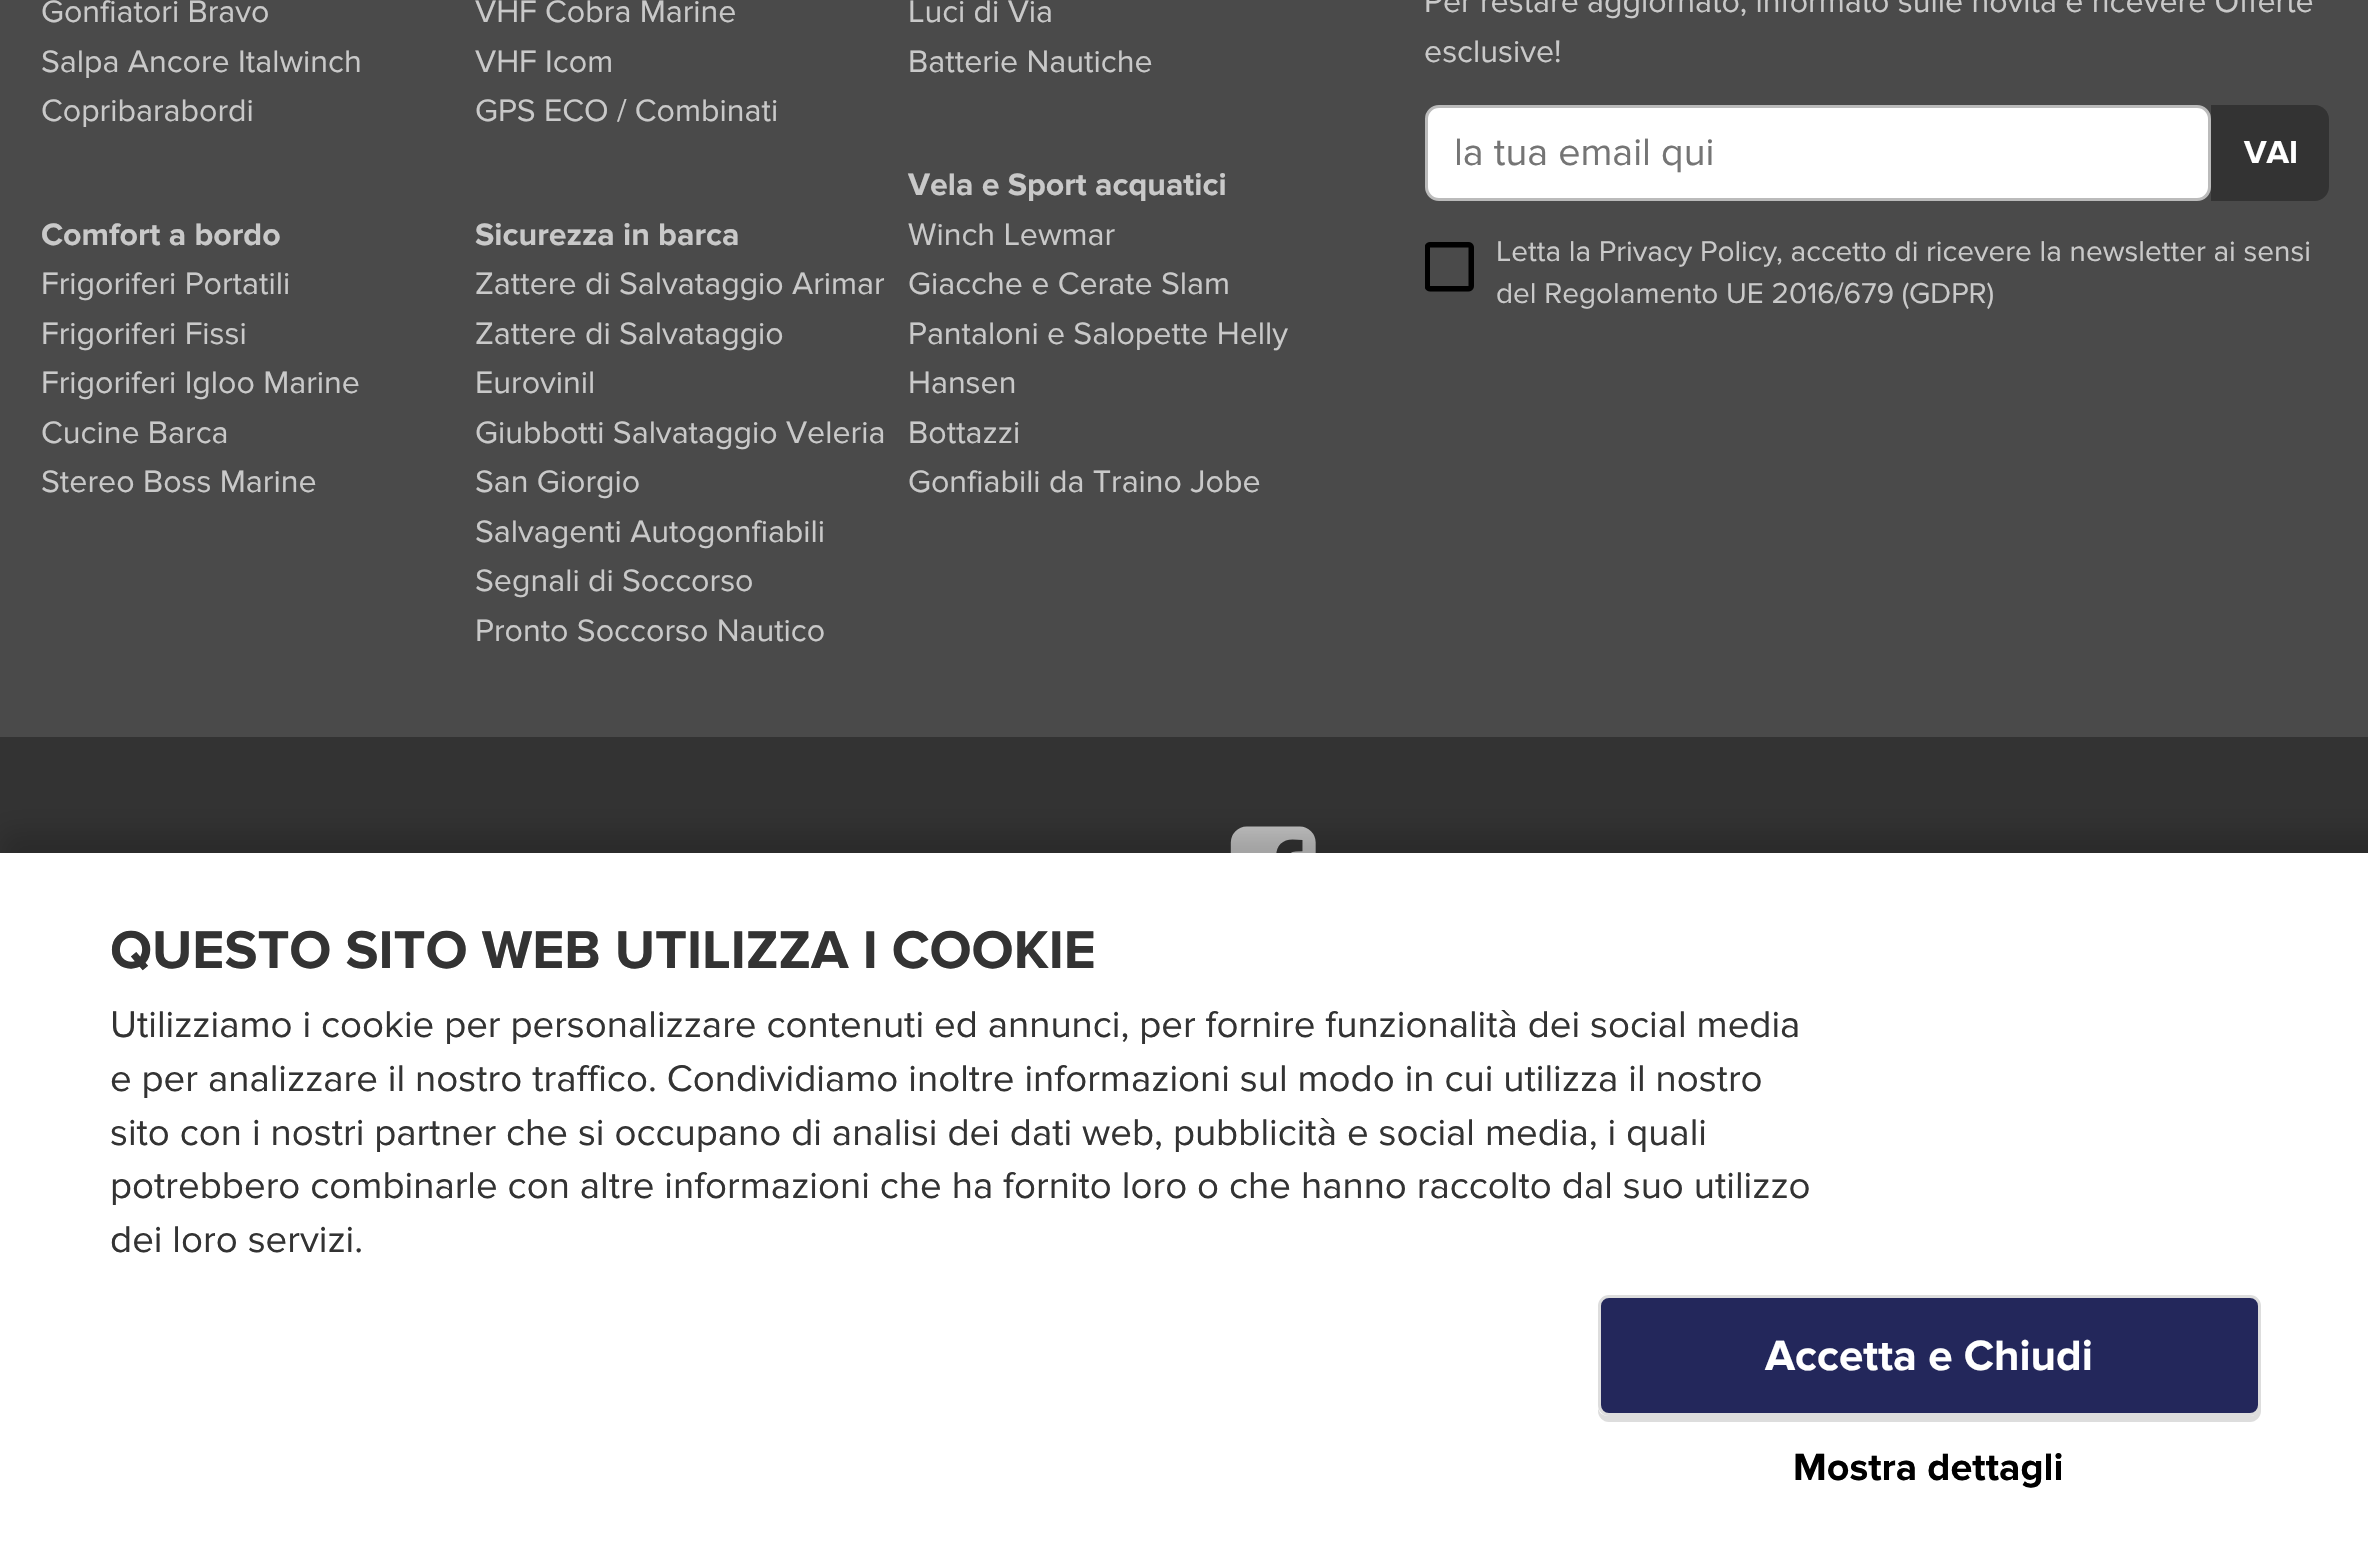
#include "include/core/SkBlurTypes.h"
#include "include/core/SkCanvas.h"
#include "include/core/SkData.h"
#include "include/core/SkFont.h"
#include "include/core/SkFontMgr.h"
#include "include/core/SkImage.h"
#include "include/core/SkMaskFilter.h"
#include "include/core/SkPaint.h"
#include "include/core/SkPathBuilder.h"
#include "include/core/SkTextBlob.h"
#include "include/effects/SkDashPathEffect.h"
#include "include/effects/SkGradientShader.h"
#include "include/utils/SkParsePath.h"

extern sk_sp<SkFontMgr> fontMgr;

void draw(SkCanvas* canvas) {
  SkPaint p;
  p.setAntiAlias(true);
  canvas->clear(SkColorSetRGB(74, 74, 74));
  p.setColor(SK_ColorWHITE);
  canvas->drawRoundRect(SkRect::MakeLTRB(1426.5f, 106.5f, 2209.5f, 199.5f), 12.5f, 12.5f, p);
  p.setStyle(SkPaint::kStroke_Style);
  p.setStrokeWidth(3);
  p.setColor(SkColorSetRGB(187, 187, 187));
  canvas->drawRoundRect(SkRect::MakeLTRB(1426.5f, 106.5f, 2209.5f, 199.5f), 12.5f, 12.5f, p);
  p.setStyle(SkPaint::kFill_Style);
  p.setColor(SkColorSetRGB(51, 51, 51));
  canvas->drawPath(SkPathBuilder().moveTo(2211, 105).lineTo(2315, 105).cubicTo(2322.5f, 105, 2329, 111.5f, 2329, 119).lineTo(2329, 187).cubicTo(2329, 194.5f, 2322.5f, 201, 2315, 201).lineTo(2211, 201).close().detach(), p);
  canvas->drawImageRect(SkImages::DeferredFromEncodedData(SkData::MakeFromFileName("images/1.png")), SkRect::MakeLTRB(1425, 242, 1474, 292), SkSamplingOptions());
  canvas->drawRect(SkRect::MakeLTRB(0, 737, 2368, 853), p);
  canvas->drawImageRect(SkImages::DeferredFromEncodedData(SkData::MakeFromFileName("images/2.png")), SkRect::MakeLTRB(1230, 826, 1316, 853), SkSamplingOptions());
  p.setColor(SkColorSetARGB(43, 0, 0, 0));
  p.setMaskFilter(SkMaskFilter::MakeBlur(kNormal_SkBlurStyle, 12.5f));
  canvas->drawRect(SkRect::MakeLTRB(0, 831, 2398, 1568), p);
  p.setMaskFilter(nullptr);
  p.setColor(SK_ColorWHITE);
  canvas->drawRect(SkRect::MakeLTRB(0, 853, 2368, 1562), p);
  p.setColor(SkColorSetRGB(221, 221, 221));
  canvas->drawPath(SkPathBuilder().moveTo(1598, 1408).lineTo(1598, 1411).cubicTo(1598, 1417, 1603, 1422, 1609, 1422).lineTo(2250, 1422).cubicTo(2256, 1422, 2261, 1417, 2261, 1411).lineTo(2261, 1312).lineTo(2260, 1309).lineTo(2260, 1405).cubicTo(2260, 1411, 2256, 1416, 2250, 1416).lineTo(1609, 1416).cubicTo(1603, 1416, 1599, 1413, 1598, 1408).close().detach(), p);
  p.setColor(SkColorSetRGB(35, 39, 91));
  canvas->drawRoundRect(SkRect::MakeLTRB(1599.5f, 1296.5f, 2259.5f, 1414.5f), 9.5f, 9.5f, p);
  p.setStyle(SkPaint::kStroke_Style);
  p.setColor(SkColorSetRGB(221, 221, 221));
  canvas->drawRoundRect(SkRect::MakeLTRB(1599.5f, 1296.5f, 2259.5f, 1414.5f), 9.5f, 9.5f, p);
  SkFont font1(fontMgr->matchFamilyStyle("Proxima Nova", SkFontStyle::Normal()), 32.2f);
  font1.setSubpixel(true);
  p.setStyle(SkPaint::kFill_Style);
  p.setColor(SkColorSetRGB(201, 201, 201));
  canvas->drawString("Gonfiatori Bravo", 41, 22, font1, p);
  canvas->drawString("Salpa Ancore Italwinch", 41, 72, font1, p);
  canvas->drawString("Copribarabordi", 41, 121, font1, p);
  SkFont font2(fontMgr->matchFamilyStyle("Proxima Nova", SkFontStyle::Bold()), 32.2f);
  font2.setSubpixel(true);
  canvas->drawString("Comfort a bordo", 41, 245, font2, p);
  canvas->drawString("Frigoriferi Portatili", 41, 294, font1, p);
  canvas->drawString("Frigoriferi Fissi", 41, 344, font1, p);
  canvas->drawString("Frigoriferi Igloo Marine", 41, 393, font1, p);
  canvas->drawString("Cucine Barca", 41, 443, font1, p);
  canvas->drawString("Stereo Boss Marine", 41, 492, font1, p);
  canvas->drawString("VHF Cobra Marine", 475, 22, font1, p);
  canvas->drawString("VHF Icom", 475, 72, font1, p);
  canvas->drawString("GPS ECO / Combinati", 475, 121, font1, p);
  canvas->drawString("Sicurezza in barca", 475, 245, font2, p);
  canvas->drawString("Zattere di Salvataggio Arimar", 475, 294, font1, p);
  canvas->drawString("Zattere di Salvataggio", 475, 344, font1, p);
  canvas->drawString("Eurovinil", 475, 393, font1, p);
  canvas->drawString("Giubbotti Salvataggio Veleria", 475, 443, font1, p);
  canvas->drawString("San Giorgio", 475, 492, font1, p);
  canvas->drawString("Salvagenti Autogonfiabili", 475, 542, font1, p);
  canvas->drawString("Segnali di Soccorso", 475, 591, font1, p);
  canvas->drawString("Pronto Soccorso Nautico", 475, 641, font1, p);
  canvas->drawString("Luci di Via", 908, 22, font1, p);
  canvas->drawString("Batterie Nautiche", 908, 72, font1, p);
  canvas->drawString("Vela e Sport acquatici", 908, 195, font2, p);
  canvas->drawString("Winch Lewmar", 908, 245, font1, p);
  canvas->drawString("Giacche e Cerate Slam", 908, 294, font1, p);
  canvas->drawString("Pantaloni e Salopette Helly", 908, 344, font1, p);
  canvas->drawString("Hansen", 908, 393, font1, p);
  canvas->drawString("Bottazzi", 908, 443, font1, p);
  canvas->drawString("Gonfiabili da Traino Jobe", 908, 492, font1, p);
  canvas->drawString("Per restare aggiornato, informato sulle novità e ricevere Offerte", 1424, 12, font1, p);
  canvas->drawString("esclusive!", 1424, 62, font1, p);
  SkFont font3(fontMgr->matchFamilyStyle("Proxima Nova", SkFontStyle::Normal()), 39.5f);
  font3.setSubpixel(true);
  p.setColor(SkColorSetRGB(117, 117, 117));
  canvas->drawString("la tua email qui", 1454, 165, font3, p);
  SkFont font4(fontMgr->matchFamilyStyle("Proxima Nova", SkFontStyle::Bold()), 33);
  font4.setSubpixel(true);
  p.setColor(SK_ColorWHITE);
  canvas->drawString("VAI", 2244, 163, font4, p);
  SkFont font5(fontMgr->matchFamilyStyle("Proxima Nova", SkFontStyle::Normal()), 29.75f);
  font5.setSubpixel(true);
  p.setColor(SkColorSetRGB(201, 201, 201));
  canvas->drawString("Letta la Privacy Policy", 1496, 261, font5, p);
  canvas->drawString(", accetto di ricevere la newsletter ai sensi", 1776, 261, font5, p);
  canvas->drawString("del Regolamento UE 2016/679 (GDPR)", 1496, 303, font5, p);
  SkFont font6(fontMgr->matchFamilyStyle("Proxima Nova", SkFontStyle::Bold()), 55);
  font6.setSubpixel(true);
  p.setColor(SkColorSetRGB(51, 51, 51));
  canvas->drawString("QUESTO SITO WEB UTILIZZA I COOKIE", 110, 968, font6, p);
  SkFont font7(fontMgr->matchFamilyStyle("Proxima Nova", SkFontStyle::Normal()), 38.5f);
  font7.setSubpixel(true);
  canvas->drawString("Utilizziamo i cookie per personalizzare contenuti ed annunci, per fornire funzionalità dei social media", 110, 1037, font7, p);
  canvas->drawString("e per analizzare il nostro traffico. Condividiamo inoltre informazioni sul modo in cui utilizza il nostro", 110, 1091, font7, p);
  canvas->drawString("sito con i nostri partner che si occupano di analisi dei dati web, pubblicità e social media, i quali", 110, 1145, font7, p);
  canvas->drawString("potrebbero combinarle con altre informazioni che ha fornito loro o che hanno raccolto dal suo utilizzo", 110, 1198, font7, p);
  canvas->drawString("dei loro servizi.", 110, 1252, font7, p);
  SkFont font8(fontMgr->matchFamilyStyle("Proxima Nova", SkFontStyle::Bold()), 44);
  font8.setSubpixel(true);
  p.setColor(SK_ColorWHITE);
  canvas->drawString("Accetta e Chiudi", 1765, 1370, font8, p);
  SkFont font9(fontMgr->matchFamilyStyle("Proxima Nova", SkFontStyle::Bold()), 39.5f);
  font9.setSubpixel(true);
  p.setColor(SK_ColorBLACK);
  canvas->drawString("Mostra dettagli", 1793, 1480, font9, p);
}
